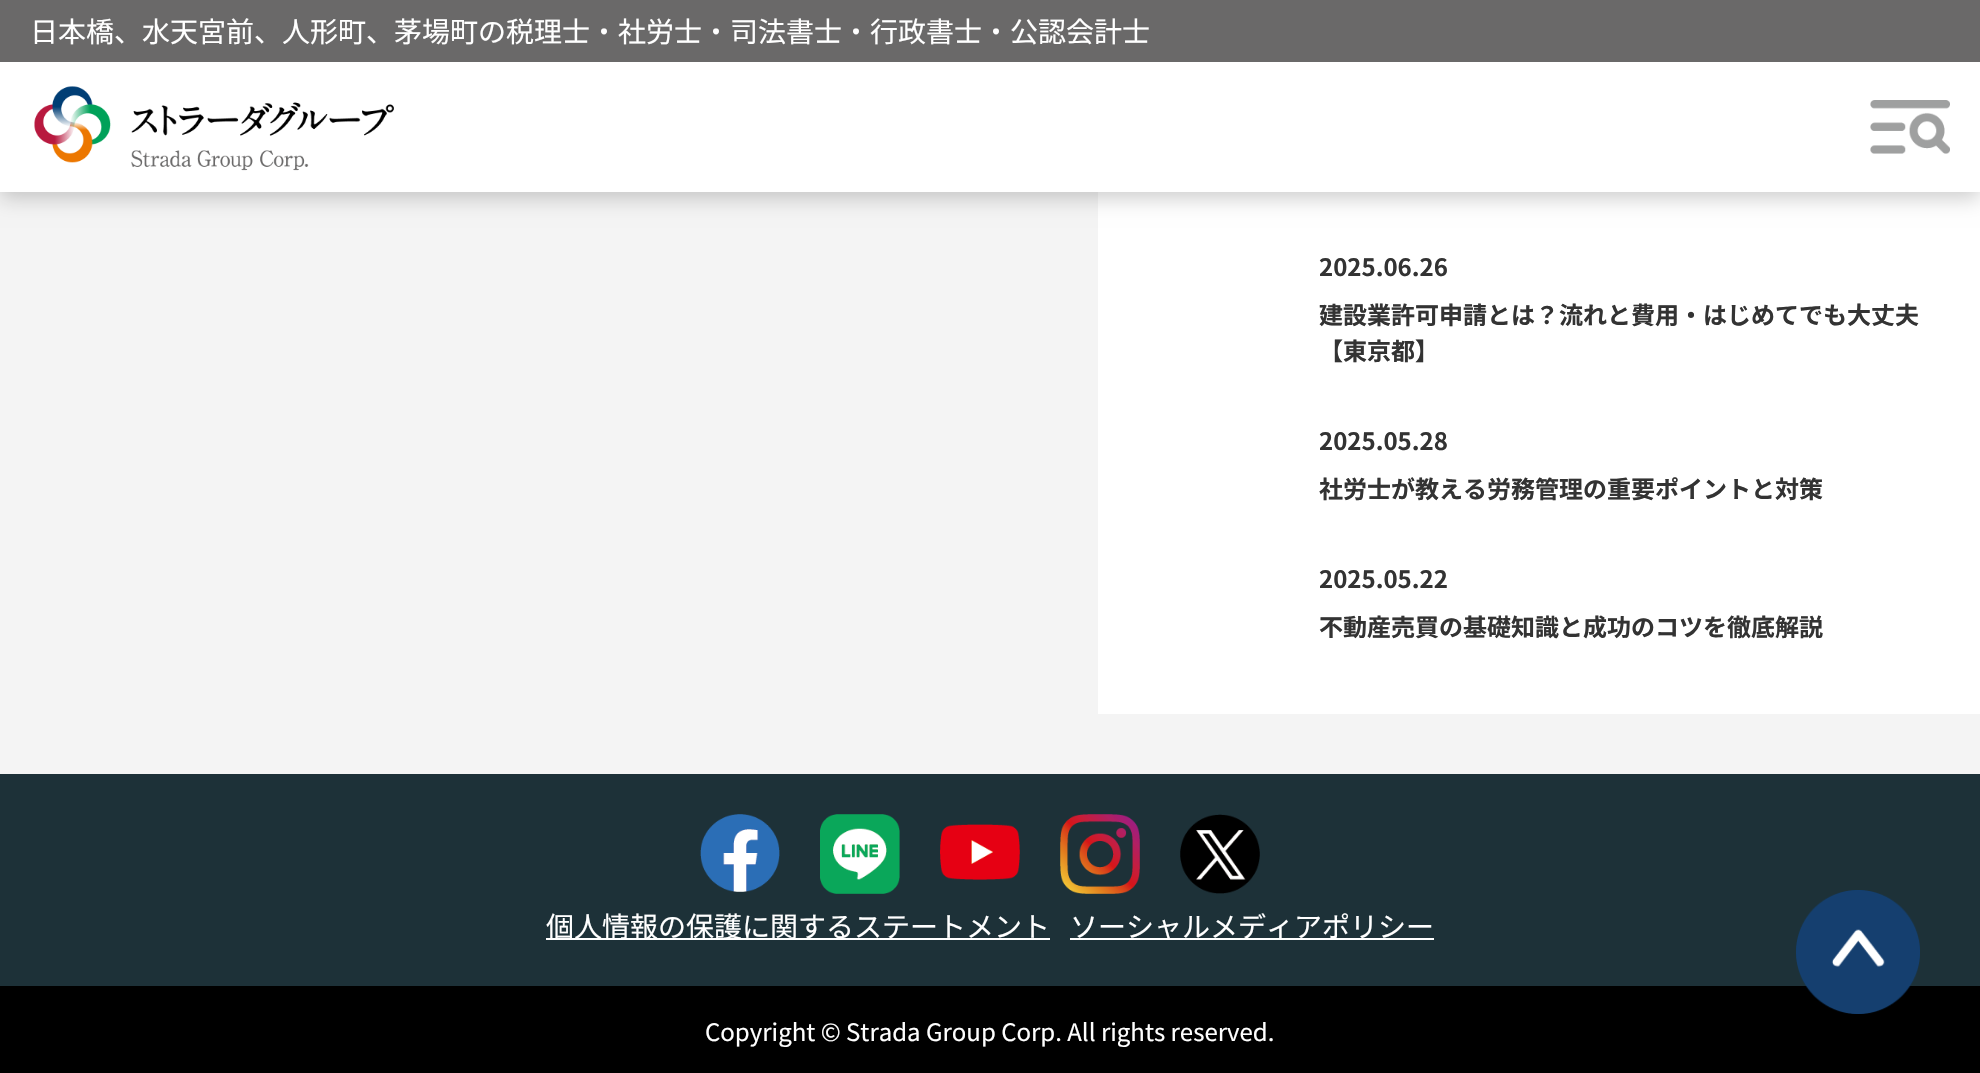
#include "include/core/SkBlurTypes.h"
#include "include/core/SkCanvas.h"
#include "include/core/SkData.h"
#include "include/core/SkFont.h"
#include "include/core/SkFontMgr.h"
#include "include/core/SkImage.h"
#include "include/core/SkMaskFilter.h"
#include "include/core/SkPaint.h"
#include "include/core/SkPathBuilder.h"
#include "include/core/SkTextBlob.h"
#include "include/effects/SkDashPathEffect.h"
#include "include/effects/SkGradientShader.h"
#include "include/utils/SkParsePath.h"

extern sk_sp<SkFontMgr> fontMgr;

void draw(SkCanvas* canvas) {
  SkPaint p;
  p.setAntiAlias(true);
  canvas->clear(SkColorSetRGB(244, 244, 244));
  p.setColor(SK_ColorWHITE);
  canvas->drawRect(SkRect::MakeLTRB(1098, 192, 1980, 714), p);
  p.setColor(SkColorSetARGB(51, 0, 0, 0));
  p.setMaskFilter(SkMaskFilter::MakeBlur(kNormal_SkBlurStyle, 10));
  canvas->drawRect(SkRect::MakeLTRB(0, 6, 1980, 198), p);
  p.setMaskFilter(nullptr);
  p.setColor(SkColorSetRGB(106, 105, 105));
  canvas->drawRect(SkRect::MakeLTRB(0, 0, 1980, 62), p);
  p.setColor(SK_ColorWHITE);
  canvas->drawRect(SkRect::MakeLTRB(0, 62, 1980, 192), p);
  canvas->drawImageRect(SkImages::DeferredFromEncodedData(SkData::MakeFromFileName("images/1.png")), SkRect::MakeLTRB(34, 86, 394, 171), SkSamplingOptions());
  canvas->drawImageRect(SkImages::DeferredFromEncodedData(SkData::MakeFromFileName("images/2.png")), SkRect::MakeLTRB(1870, 100, 1950, 154), SkSamplingOptions());
  p.setColor(SkColorSetRGB(29, 49, 56));
  canvas->drawRect(SkRect::MakeLTRB(0, 774, 1980, 986), p);
  canvas->drawImageRect(SkImages::DeferredFromEncodedData(SkData::MakeFromFileName("images/3.png")), SkRect::MakeLTRB(700, 814, 780, 892), SkSamplingOptions());
  canvas->drawImageRect(SkImages::DeferredFromEncodedData(SkData::MakeFromFileName("images/4.png")), SkRect::MakeLTRB(820, 814, 900, 894), SkSamplingOptions());
  canvas->drawImageRect(SkImages::DeferredFromEncodedData(SkData::MakeFromFileName("images/5.png")), SkRect::MakeLTRB(940, 824, 1020, 880), SkSamplingOptions());
  canvas->drawImageRect(SkImages::DeferredFromEncodedData(SkData::MakeFromFileName("images/6.png")), SkRect::MakeLTRB(1060, 814, 1140, 894), SkSamplingOptions());
  canvas->drawImageRect(SkImages::DeferredFromEncodedData(SkData::MakeFromFileName("images/7.png")), SkRect::MakeLTRB(1180, 814, 1260, 894), SkSamplingOptions());
  p.setColor(SK_ColorWHITE);
  canvas->drawRect(SkRect::MakeLTRB(546, 938, 1050, 940), p);
  canvas->drawRect(SkRect::MakeLTRB(1070, 938, 1434, 940), p);
  p.setColor(SK_ColorBLACK);
  canvas->drawRect(SkRect::MakeLTRB(0, 986, 1980, 1073), p);
  canvas->drawImageRect(SkImages::DeferredFromEncodedData(SkData::MakeFromFileName("images/8.png")), SkRect::MakeLTRB(1796, 890, 1920, 1014), SkSamplingOptions());
  SkFont font1(fontMgr->matchFamilyStyle("Noto Sans JP", SkFontStyle::Normal()), 28);
  font1.setSubpixel(true);
  p.setColor(SK_ColorWHITE);
  canvas->drawString("日本橋、水天宮前、人形町、茅場町の税理士・社労士・司法書士・行政書士・公認会計士", 30, 42, font1, p);
  SkFont font2(fontMgr->matchFamilyStyle("Noto Sans JP", SkFontStyle::Bold()), 24);
  font2.setSubpixel(true);
  p.setColor(SkColorSetRGB(51, 51, 51));
  canvas->drawString("2025.06.26", 1319, 276, font2, p);
  canvas->drawString("建設業許可申請とは？流れと費用・はじめてでも大丈夫", 1319, 324, font2, p);
  canvas->drawString("【東京都】", 1319, 360, font2, p);
  canvas->drawString("2025.05.28", 1319, 450, font2, p);
  canvas->drawString("社労士が教える労務管理の重要ポイントと対策", 1319, 498, font2, p);
  canvas->drawString("2025.05.22", 1319, 588, font2, p);
  canvas->drawString("不動産売買の基礎知識と成功のコツを徹底解説", 1319, 636, font2, p);
  p.setColor(SK_ColorWHITE);
  canvas->drawString("個人情報の保護に関するステートメント", 546, 937, font1, p);
  canvas->drawString("ソーシャルメディアポリシー", 1070, 937, font1, p);
  SkFont font3(fontMgr->matchFamilyStyle("Noto Sans JP", SkFontStyle::Normal()), 24);
  font3.setSubpixel(true);
  canvas->drawString("Copyright © Strada Group Corp. All rights reserved.", 705, 1041, font3, p);
}
